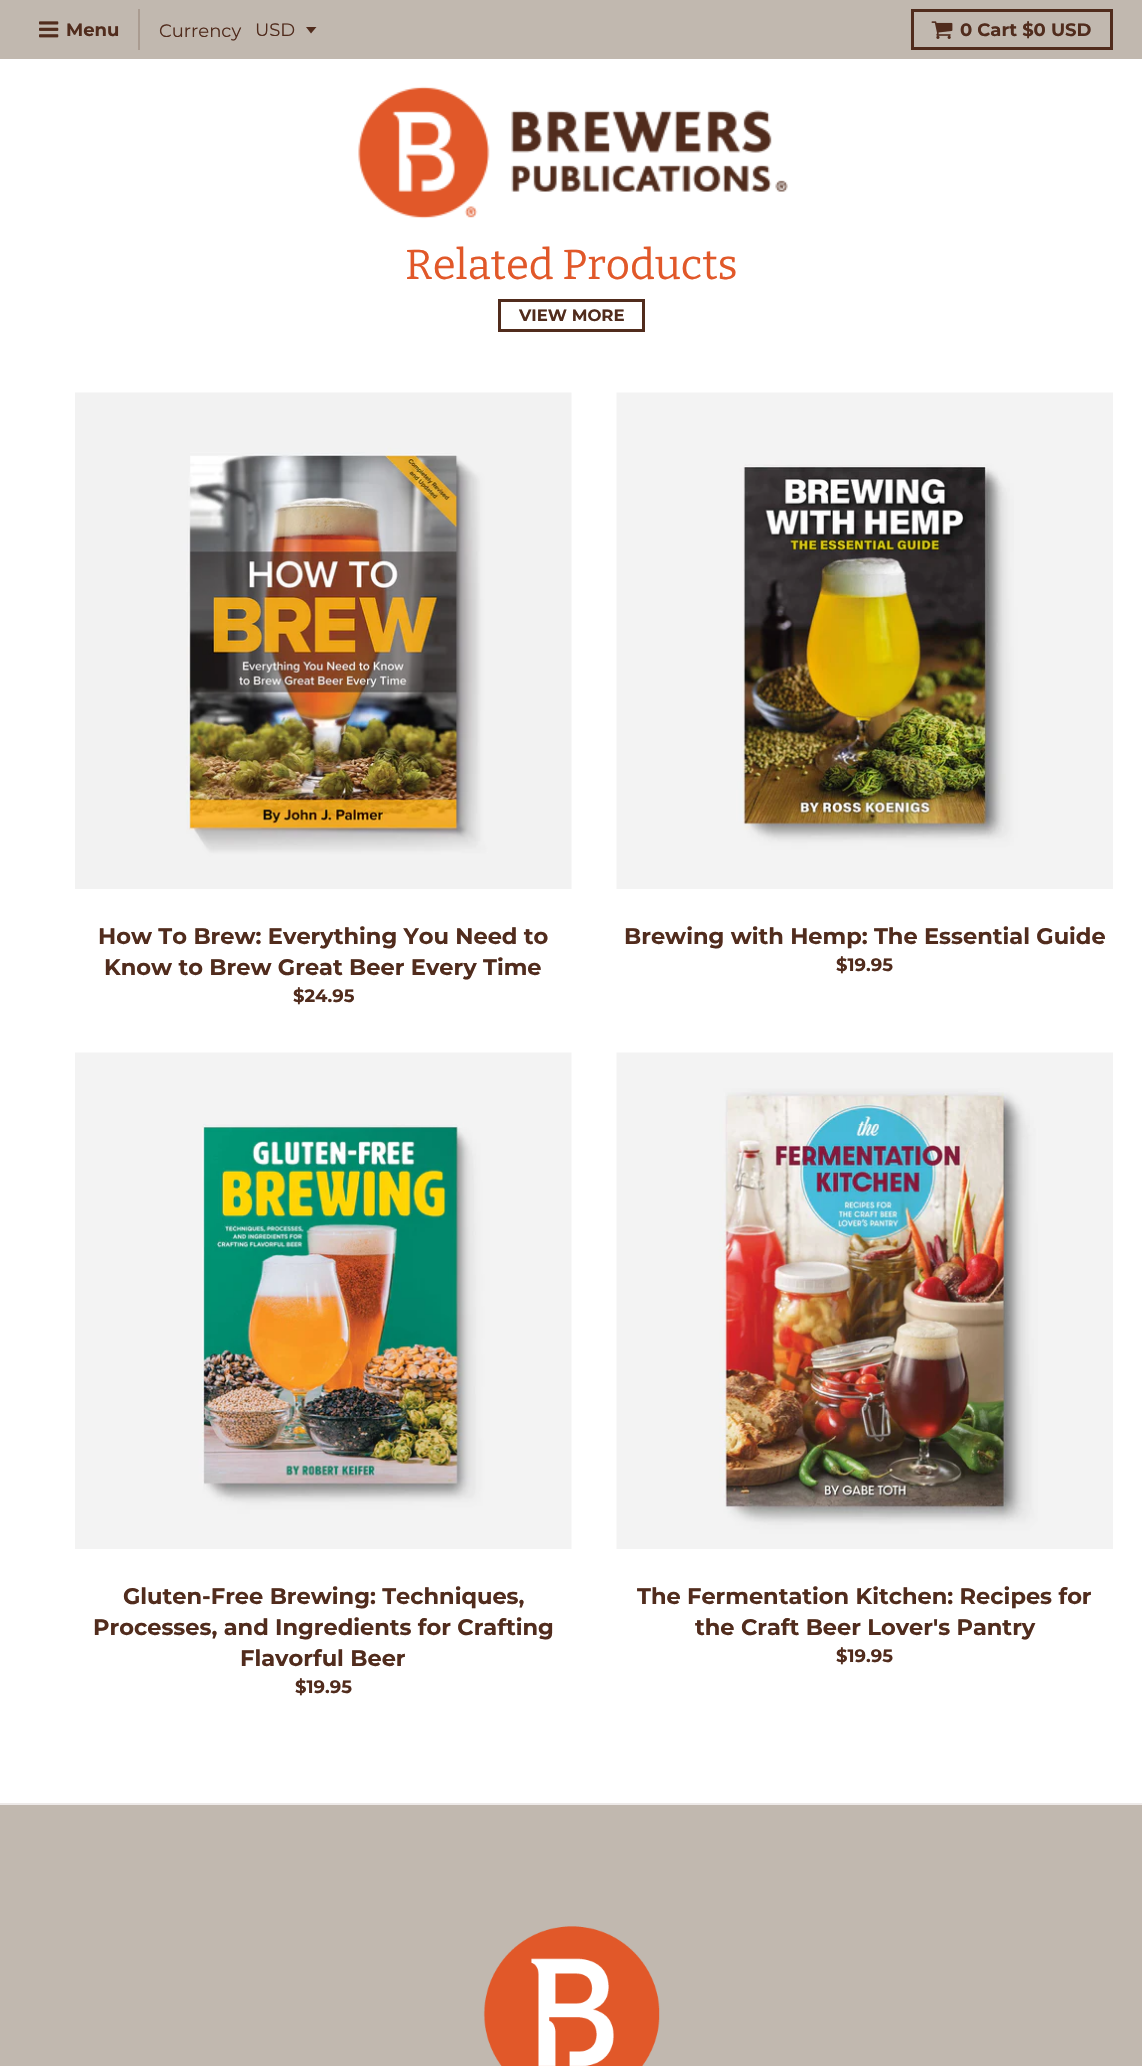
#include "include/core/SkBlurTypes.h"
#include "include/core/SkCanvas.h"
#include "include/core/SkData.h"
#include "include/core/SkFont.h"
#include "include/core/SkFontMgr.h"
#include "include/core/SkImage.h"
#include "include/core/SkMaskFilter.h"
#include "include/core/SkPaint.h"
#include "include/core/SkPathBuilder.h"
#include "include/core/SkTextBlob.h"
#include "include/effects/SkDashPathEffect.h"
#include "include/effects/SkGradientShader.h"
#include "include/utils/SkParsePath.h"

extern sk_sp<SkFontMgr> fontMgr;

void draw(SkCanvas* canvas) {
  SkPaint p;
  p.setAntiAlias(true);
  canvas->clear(SK_ColorWHITE);
  p.setColor(SkColorSetRGB(193, 184, 175));
  canvas->drawRect(SkRect::MakeLTRB(0, 0, 1142, 59), p);
  p.setColor(SkColorSetRGB(170, 156, 145));
  canvas->drawRect(SkRect::MakeLTRB(138, 9, 140, 50), p);
  canvas->drawImageRect(SkImages::DeferredFromEncodedData(SkData::MakeFromFileName("images/1.png")), SkRect::MakeLTRB(39, 21, 59, 38), SkSamplingOptions());
  p.setColor(SkColorSetRGB(81, 44, 29));
  canvas->drawPath(SkPathBuilder().moveTo(306, 27).lineTo(311, 33.5f).lineTo(316.5f, 27).close().detach(), p);
  p.setStyle(SkPaint::kStroke_Style);
  p.setStrokeWidth(3);
  canvas->drawRect(SkRect::MakeLTRB(912.5f, 10.5f, 1111.5f, 48.5f), p);
  canvas->drawImageRect(SkImages::DeferredFromEncodedData(SkData::MakeFromFileName("images/2.png")), SkRect::MakeLTRB(931, 21, 953, 39), SkSamplingOptions());
  canvas->drawImageRect(SkImages::DeferredFromEncodedData(SkData::MakeFromFileName("images/3.png")), SkRect::MakeLTRB(358, 86, 788, 219), SkSamplingOptions());
  p.setStyle(SkPaint::kFill_Style);
  p.setColor(SkColorSetRGB(237, 233, 232));
  canvas->drawRect(SkRect::MakeLTRB(0, 1803, 1142, 1805), p);
  p.setStyle(SkPaint::kStroke_Style);
  p.setColor(SkColorSetRGB(81, 44, 29));
  canvas->drawRect(SkRect::MakeLTRB(499.5f, 300.5f, 643.5f, 330.5f), p);
  canvas->drawImageRect(SkImages::DeferredFromEncodedData(SkData::MakeFromFileName("images/4.png")), SkRect::MakeLTRB(75, 392, 572, 889), SkSamplingOptions());
  canvas->drawImageRect(SkImages::DeferredFromEncodedData(SkData::MakeFromFileName("images/5.png")), SkRect::MakeLTRB(616, 392, 1113, 889), SkSamplingOptions());
  canvas->drawImageRect(SkImages::DeferredFromEncodedData(SkData::MakeFromFileName("images/6.png")), SkRect::MakeLTRB(75, 1052, 572, 1549), SkSamplingOptions());
  canvas->drawImageRect(SkImages::DeferredFromEncodedData(SkData::MakeFromFileName("images/7.png")), SkRect::MakeLTRB(616, 1052, 1113, 1549), SkSamplingOptions());
  p.setStyle(SkPaint::kFill_Style);
  p.setColor(SkColorSetRGB(193, 184, 175));
  canvas->drawRect(SkRect::MakeLTRB(0, 1805, 1142, 2066), p);
  canvas->drawImageRect(SkImages::DeferredFromEncodedData(SkData::MakeFromFileName("images/8.png")), SkRect::MakeLTRB(483, 1926, 660, 2066), SkSamplingOptions());
  SkFont font1(fontMgr->matchFamilyStyle("Montserrat", SkFontStyle::Bold()), 18);
  font1.setSubpixel(true);
  p.setColor(SkColorSetRGB(81, 44, 29));
  canvas->drawString("Menu", 66, 36, font1, p);
  SkFont font2(fontMgr->matchFamilyStyle("Montserrat", SkFontStyle::Normal()), 18);
  font2.setSubpixel(true);
  canvas->drawString("Currency", 159, 37, font2, p);
  canvas->drawString("USD", 255, 36, font2, p);
  canvas->drawString("0 Cart $0 USD", 960, 36, font1, p);
  SkFont font3(fontMgr->matchFamilyStyle("Bitter", SkFontStyle::Normal()), 42);
  font3.setSubpixel(true);
  p.setColor(SkColorSetRGB(225, 88, 41));
  canvas->drawString("Related Products", 405, 279, font3, p);
  SkFont font4(fontMgr->matchFamilyStyle("Montserrat", SkFontStyle::Bold()), 16.5f);
  font4.setSubpixel(true);
  p.setColor(SkColorSetRGB(81, 44, 29));
  canvas->drawString("VIEW MORE", 519, 321, font4, p);
  SkFont font5(fontMgr->matchFamilyStyle("Montserrat", SkFontStyle::Bold()), 22.5f);
  font5.setSubpixel(true);
  canvas->drawString("How To Brew: Everything You Need to", 98, 944, font5, p);
  canvas->drawString("Know to Brew Great Beer Every Time", 104, 975, font5, p);
  canvas->drawString("$24.95", 293, 1002, font1, p);
  canvas->drawString("Brewing with Hemp: The Essential Guide", 624, 944, font5, p);
  canvas->drawString("$19.95", 836, 971, font1, p);
  canvas->drawString("Gluten-Free Brewing: Techniques,", 123, 1604, font5, p);
  canvas->drawString("Processes, and Ingredients for Crafting", 93, 1635, font5, p);
  canvas->drawString("Flavorful Beer", 240, 1666, font5, p);
  canvas->drawString("$19.95", 295, 1693, font1, p);
  canvas->drawString("The Fermentation Kitchen: Recipes for", 637, 1604, font5, p);
  canvas->drawString("the Craft Beer Lover's Pantry", 695, 1635, font5, p);
  canvas->drawString("$19.95", 836, 1662, font1, p);
}
